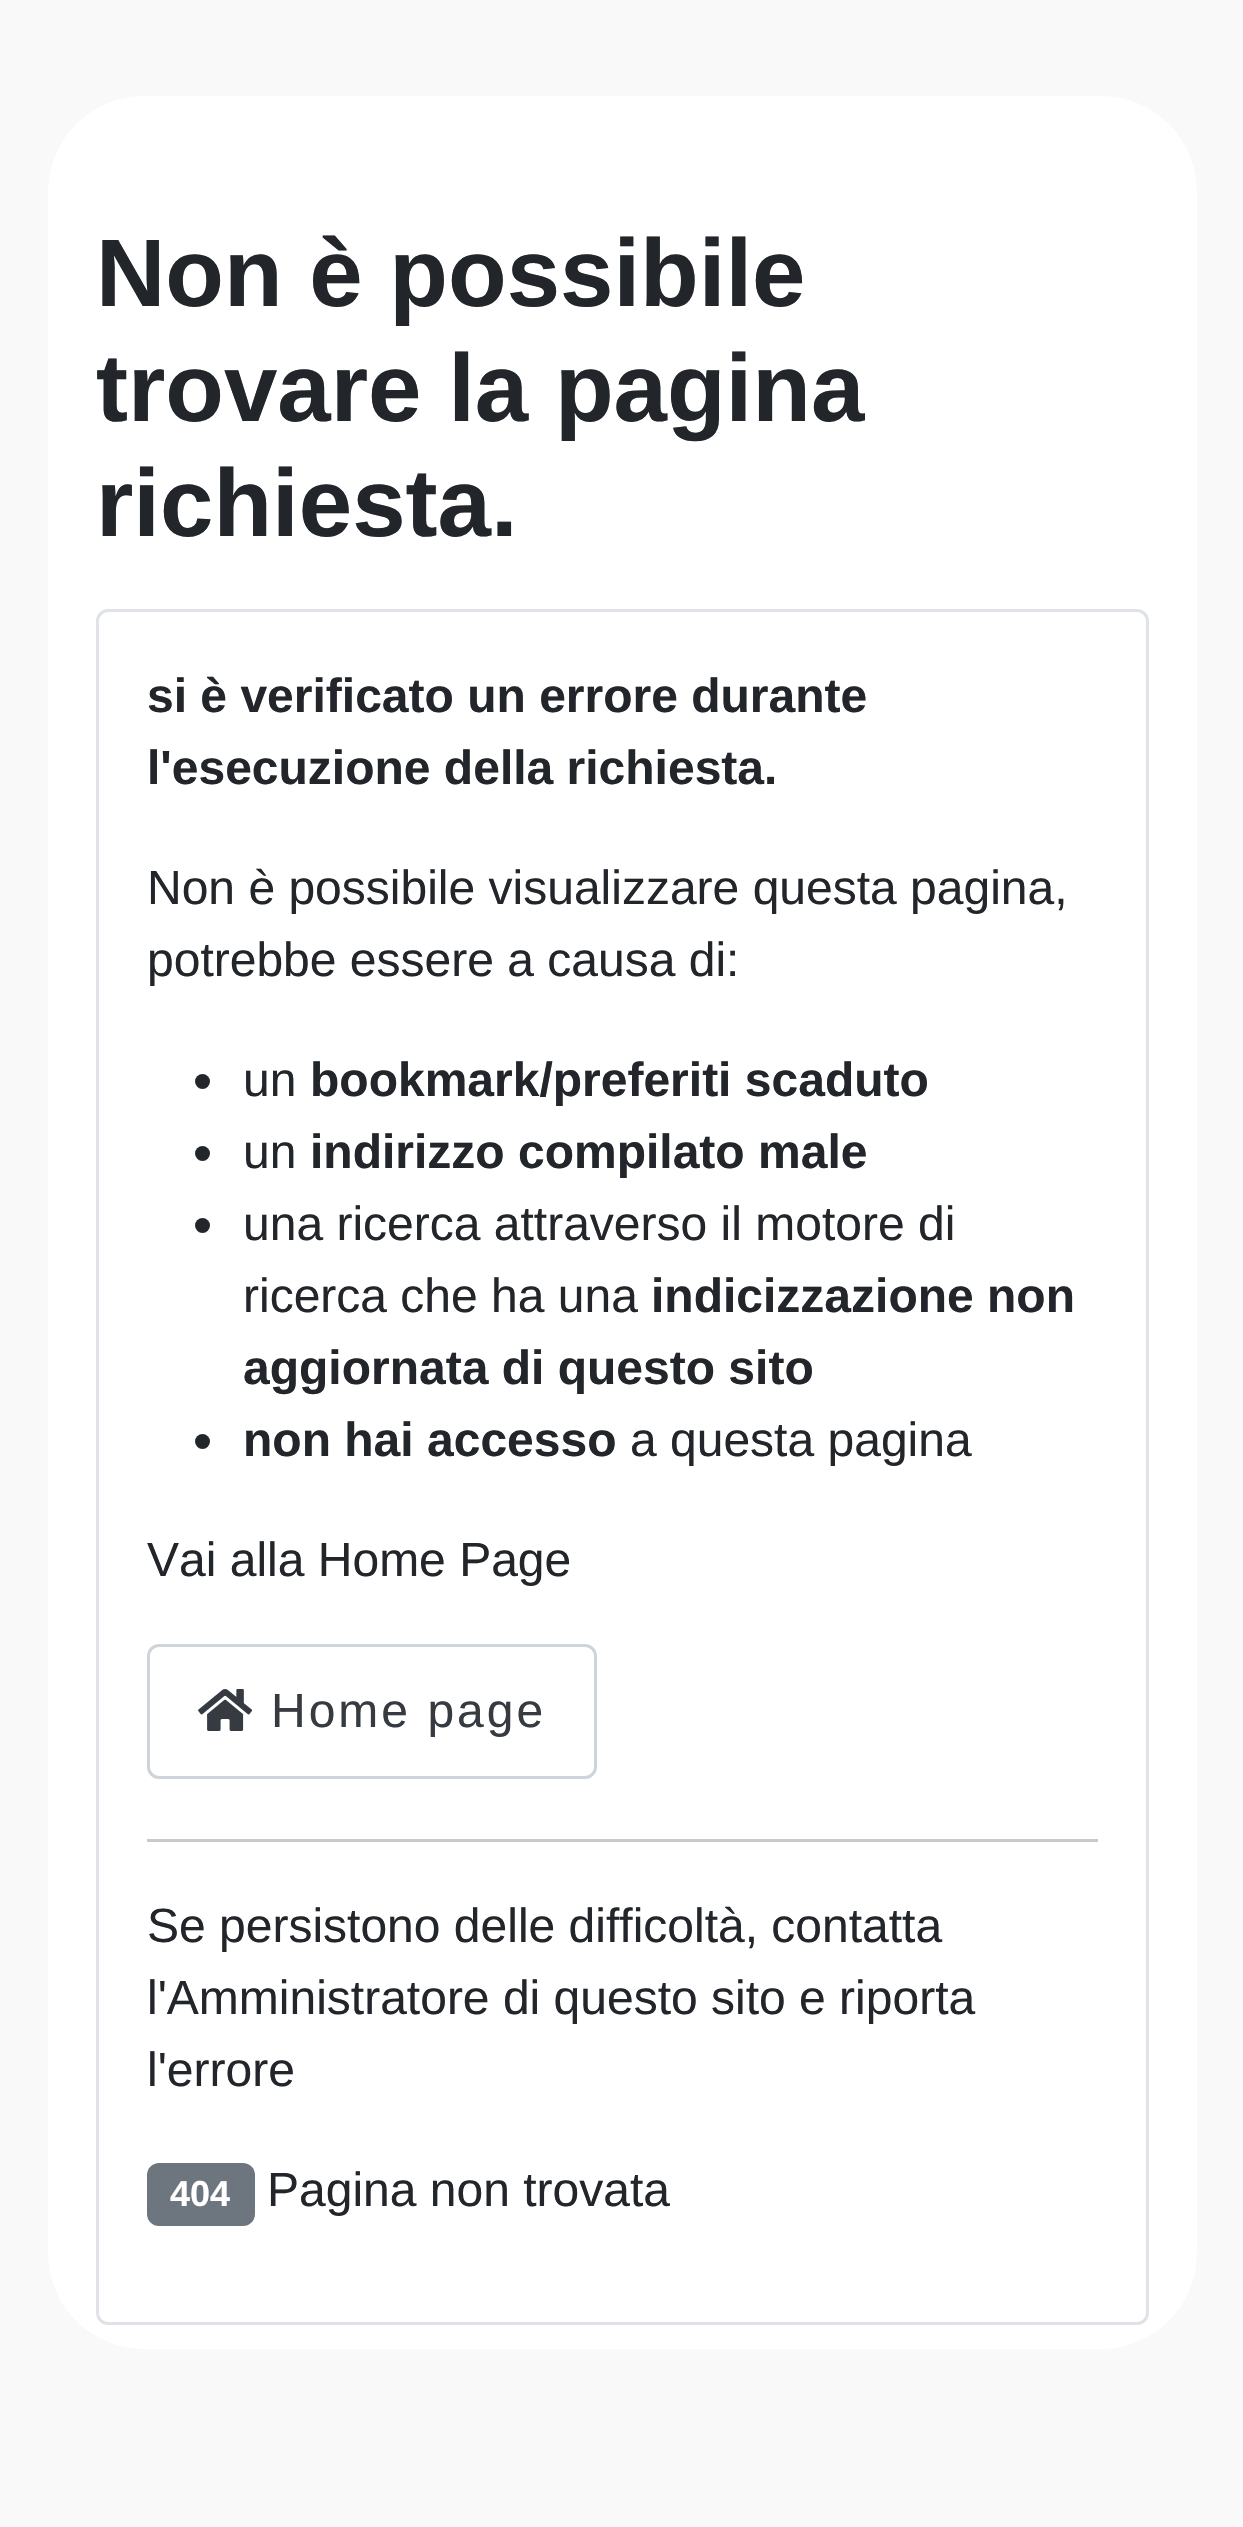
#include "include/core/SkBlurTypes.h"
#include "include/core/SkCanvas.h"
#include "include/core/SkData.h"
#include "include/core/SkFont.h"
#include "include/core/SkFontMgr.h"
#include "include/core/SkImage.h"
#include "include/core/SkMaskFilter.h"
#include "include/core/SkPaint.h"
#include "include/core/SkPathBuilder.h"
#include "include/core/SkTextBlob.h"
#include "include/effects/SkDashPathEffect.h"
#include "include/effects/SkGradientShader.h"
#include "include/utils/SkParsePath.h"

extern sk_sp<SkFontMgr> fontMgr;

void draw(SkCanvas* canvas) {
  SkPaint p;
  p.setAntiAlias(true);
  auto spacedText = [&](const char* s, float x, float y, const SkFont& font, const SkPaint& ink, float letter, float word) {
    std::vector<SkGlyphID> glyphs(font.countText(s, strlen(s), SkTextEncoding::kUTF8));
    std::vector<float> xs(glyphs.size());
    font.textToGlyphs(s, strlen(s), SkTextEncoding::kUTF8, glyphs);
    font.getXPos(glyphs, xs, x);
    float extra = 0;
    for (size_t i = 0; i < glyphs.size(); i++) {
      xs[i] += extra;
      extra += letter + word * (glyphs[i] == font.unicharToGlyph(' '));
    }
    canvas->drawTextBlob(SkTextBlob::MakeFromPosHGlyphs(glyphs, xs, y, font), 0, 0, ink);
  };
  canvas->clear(SkColorSetRGB(249, 249, 249));
  p.setColor(SK_ColorWHITE);
  canvas->drawRoundRect(SkRect::MakeLTRB(48, 96, 1197, 2349), 96, 96, p);
  p.setStyle(SkPaint::kStroke_Style);
  p.setStrokeWidth(3);
  p.setColor(SkColorSetRGB(223, 227, 231));
  canvas->drawRoundRect(SkRect::MakeLTRB(97.5f, 610.5f, 1147.5f, 2323.5f), 10.5f, 10.5f, p);
  p.setStyle(SkPaint::kFill_Style);
  p.setColor(SkColorSetRGB(34, 38, 42));
  canvas->drawCircle(202.5f, 1081.5f, 7.5f, p);
  canvas->drawCircle(202.5f, 1153.5f, 7.5f, p);
  canvas->drawCircle(202.5f, 1225.5f, 7.5f, p);
  canvas->drawCircle(202.5f, 1441.5f, 7.5f, p);
  p.setStyle(SkPaint::kStroke_Style);
  p.setColor(SkColorSetRGB(206, 212, 218));
  canvas->drawRoundRect(SkRect::MakeLTRB(148.5f, 1645.5f, 595.5f, 1777.5f), 10.5f, 10.5f, p);
  canvas->drawImageRect(SkImages::DeferredFromEncodedData(SkData::MakeFromFileName("images/1.png")), SkRect::MakeLTRB(198, 1689, 253, 1731), SkSamplingOptions());
  p.setStyle(SkPaint::kFill_Style);
  p.setColor(SkColorSetRGB(200, 201, 202));
  canvas->drawRect(SkRect::MakeLTRB(147, 1839, 1098, 1842), p);
  p.setColor(SkColorSetRGB(109, 117, 126));
  canvas->drawRoundRect(SkRect::MakeLTRB(147, 2163, 255, 2226), 12, 12, p);
  SkFont font1(fontMgr->matchFamilyStyle("Liberation Sans", SkFontStyle::Bold()), 96);
  font1.setSubpixel(true);
  p.setColor(SkColorSetRGB(34, 38, 42));
  canvas->drawString("Non è possibile", 96, 306, font1, p);
  canvas->drawString("trovare la pagina", 96, 421, font1, p);
  canvas->drawString("richiesta.", 96, 536, font1, p);
  SkFont font2(fontMgr->matchFamilyStyle("Liberation Sans", SkFontStyle::Bold()), 48);
  font2.setSubpixel(true);
  canvas->drawString("si è verificato un errore durante", 147, 712, font2, p);
  canvas->drawString("l'esecuzione della richiesta.", 147, 784, font2, p);
  SkFont font3(fontMgr->matchFamilyStyle("Liberation Sans", SkFontStyle::Normal()), 48);
  font3.setSubpixel(true);
  canvas->drawString("Non è possibile visualizzare questa pagina,", 147, 904, font3, p);
  canvas->drawString("potrebbe essere a causa di:", 147, 976, font3, p);
  canvas->drawString("un", 243, 1096, font3, p);
  canvas->drawString("bookmark/preferiti scaduto", 310, 1096, font2, p);
  canvas->drawString("un", 243, 1168, font3, p);
  canvas->drawString("indirizzo compilato male", 310, 1168, font2, p);
  canvas->drawString("una ricerca attraverso il motore di", 243, 1240, font3, p);
  canvas->drawString("ricerca che ha una", 243, 1312, font3, p);
  canvas->drawString("indicizzazione non", 651, 1312, font2, p);
  canvas->drawString("aggiornata di questo sito", 243, 1384, font2, p);
  canvas->drawString("non hai accesso", 243, 1456, font2, p);
  canvas->drawString("a questa pagina", 630, 1456, font3, p);
  canvas->drawString("Vai alla Home Page", 147, 1576, font3, p);
  p.setColor(SkColorSetRGB(53, 59, 65));
  spacedText("Home page", 271, 1727, font3, p, 3, 0);
  p.setColor(SkColorSetRGB(34, 38, 42));
  canvas->drawString("Se persistono delle difficoltà, contatta", 147, 1942, font3, p);
  canvas->drawString("l'Amministratore di questo sito e riporta", 147, 2014, font3, p);
  canvas->drawString("l'errore", 147, 2086, font3, p);
  SkFont font4(fontMgr->matchFamilyStyle("Liberation Sans", SkFontStyle::Bold()), 36);
  font4.setSubpixel(true);
  p.setColor(SK_ColorWHITE);
  canvas->drawString("404", 170, 2206, font4, p);
  p.setColor(SkColorSetRGB(34, 38, 42));
  canvas->drawString("Pagina non trovata", 267, 2206, font3, p);
}
